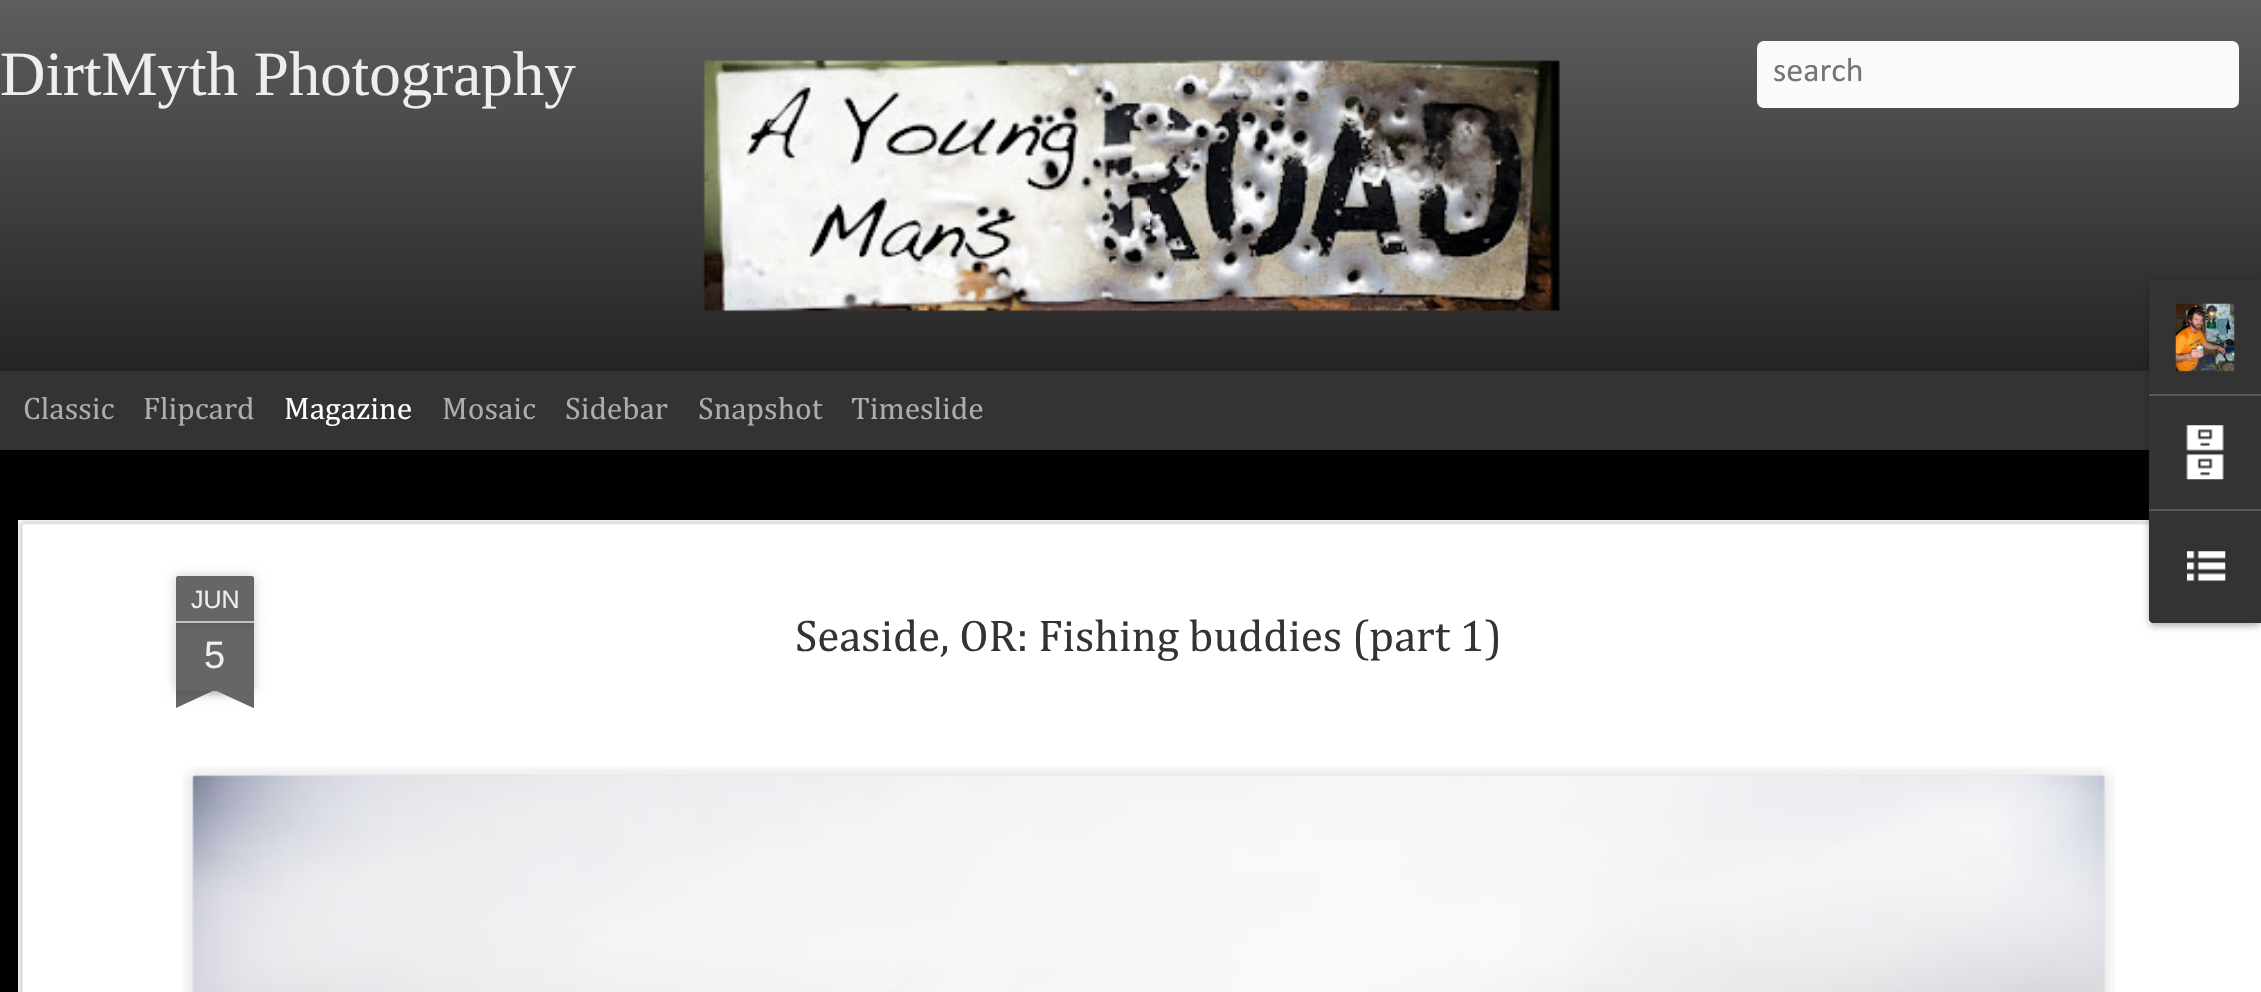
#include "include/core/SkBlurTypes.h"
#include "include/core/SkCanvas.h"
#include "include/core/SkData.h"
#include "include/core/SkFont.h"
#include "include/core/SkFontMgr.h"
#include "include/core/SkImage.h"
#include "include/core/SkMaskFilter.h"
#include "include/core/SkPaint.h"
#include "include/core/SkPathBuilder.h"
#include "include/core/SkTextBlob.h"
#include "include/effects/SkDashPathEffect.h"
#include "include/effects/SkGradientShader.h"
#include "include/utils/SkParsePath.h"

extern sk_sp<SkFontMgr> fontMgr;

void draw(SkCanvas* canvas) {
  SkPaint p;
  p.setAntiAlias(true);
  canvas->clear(SK_ColorBLACK);
  {
    const SkColor colors[] = {SkColorSetRGB(94, 94, 94), SkColorSetRGB(36, 36, 36)};
    const float stops[] = {0, 1};
    const SkPoint ends[] = {{0, 0}, {0, 371}};
    p.setShader(SkGradientShader::MakeLinear(ends, colors, stops, 2, SkTileMode::kClamp));
    p.setAlpha(255);
  }
  canvas->drawRect(SkRect::MakeLTRB(0, 0, 2261, 371), p);
  canvas->drawImageRect(SkImages::DeferredFromEncodedData(SkData::MakeFromFileName("images/1.png")), SkRect::MakeLTRB(703, 60, 1560, 312), SkSamplingOptions());
  p.setShader(nullptr);
  p.setColor(SkColorSetRGB(250, 250, 250));
  canvas->drawRoundRect(SkRect::MakeLTRB(1757, 41, 2239, 108), 7, 7, p);
  p.setColor(SkColorSetRGB(51, 51, 51));
  canvas->drawRect(SkRect::MakeLTRB(0, 371, 2149, 450), p);
  p.setColor(SK_ColorWHITE);
  canvas->drawRect(SkRect::MakeLTRB(18, 520, 2261, 992), p);
  canvas->drawImageRect(SkImages::DeferredFromEncodedData(SkData::MakeFromFileName("images/5.png")), SkRect::MakeLTRB(18, 520, 2149, 992), SkSamplingOptions());
  p.setColor(SkColorSetARGB(77, 0, 0, 0));
  p.setMaskFilter(SkMaskFilter::MakeBlur(kNormal_SkBlurStyle, 3.5f));
  canvas->drawRoundRect(SkRect::MakeLTRB(2149, 281, 2261, 626), 5, 5, p);
  p.setMaskFilter(nullptr);
  p.setColor(SkColorSetRGB(51, 51, 51));
  canvas->drawPath(SkPathBuilder().moveTo(2154, 279).lineTo(2261, 279).lineTo(2261, 623).lineTo(2154, 623).cubicTo(2151, 623, 2149, 621, 2149, 618).lineTo(2149, 284).cubicTo(2149, 281, 2151, 279, 2154, 279).close().detach(), p);
  canvas->drawImageRect(SkImages::DeferredFromEncodedData(SkData::MakeFromFileName("images/2.png")), SkRect::MakeLTRB(2175, 303, 2235, 372), SkSamplingOptions());
  p.setColor(SkColorSetRGB(88, 88, 88));
  canvas->drawRect(SkRect::MakeLTRB(2149, 394, 2261, 396), p);
  canvas->drawImageRect(SkImages::DeferredFromEncodedData(SkData::MakeFromFileName("images/3.png")), SkRect::MakeLTRB(2186, 425, 2224, 480), SkSamplingOptions());
  p.setColor(SkColorSetRGB(51, 51, 51));
  canvas->drawPath(SkPathBuilder().moveTo(2149, 509).lineTo(2261, 509).lineTo(2261, 623).lineTo(2154, 623).cubicTo(2151, 623, 2149, 621, 2149, 618).close().detach(), p);
  p.setColor(SkColorSetRGB(88, 88, 88));
  canvas->drawRect(SkRect::MakeLTRB(2149, 509, 2261, 511), p);
  canvas->drawImageRect(SkImages::DeferredFromEncodedData(SkData::MakeFromFileName("images/4.png")), SkRect::MakeLTRB(2187, 551, 2226, 582), SkSamplingOptions());
  p.setColor(SkColorSetARGB(51, 0, 0, 0));
  p.setMaskFilter(SkMaskFilter::MakeBlur(kNormal_SkBlurStyle, 5.5f));
  canvas->drawRect(SkRect::MakeLTRB(176, 623, 254, 691), p);
  p.setMaskFilter(nullptr);
  p.setColor(SkColorSetRGB(102, 102, 102));
  canvas->drawRect(SkRect::MakeLTRB(176, 623, 254, 691), p);
  p.setColor(SkColorSetARGB(51, 0, 0, 0));
  p.setMaskFilter(SkMaskFilter::MakeBlur(kNormal_SkBlurStyle, 5.5f));
  canvas->drawRoundRect(SkRect::MakeLTRB(176, 576, 254, 623), 2, 2, p);
  p.setMaskFilter(nullptr);
  p.setColor(SkColorSetRGB(102, 102, 102));
  canvas->drawPath(SkPathBuilder().moveTo(178, 576).lineTo(252, 576).cubicTo(253, 576, 254, 577, 254, 578).lineTo(254, 623).lineTo(176, 623).lineTo(176, 578).cubicTo(176, 577, 177, 576, 178, 576).close().detach(), p);
  p.setColor(SkColorSetRGB(194, 194, 194));
  canvas->drawRect(SkRect::MakeLTRB(176, 621, 254, 623), p);
  canvas->save();
  canvas->clipRect(SkRect::MakeLTRB(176, 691, 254, 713));
  p.setColor(SkColorSetARGB(51, 0, 0, 0));
  p.setMaskFilter(SkMaskFilter::MakeBlur(kNormal_SkBlurStyle, 5.5f));
  canvas->drawRect(SkRect::MakeLTRB(155, 668, 268, 691), p);
  p.setMaskFilter(nullptr);
  canvas->restore();
  canvas->save();
  canvas->clipRect(SkRect::MakeLTRB(176, 691, 254, 713));
  p.setColor(SkColorSetRGB(102, 102, 102));
  canvas->drawPath(SkPathBuilder().moveTo(156, 693).lineTo(258, 646).lineTo(267, 666).lineTo(165, 713).close().detach(), p);
  canvas->restore();
  canvas->save();
  canvas->clipRect(SkRect::MakeLTRB(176, 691, 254, 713));
  p.setColor(SkColorSetARGB(51, 0, 0, 0));
  p.setMaskFilter(SkMaskFilter::MakeBlur(kNormal_SkBlurStyle, 5.5f));
  canvas->drawRect(SkRect::MakeLTRB(162, 668, 275, 691), p);
  p.setMaskFilter(nullptr);
  canvas->restore();
  canvas->save();
  canvas->clipRect(SkRect::MakeLTRB(176, 691, 254, 713));
  p.setColor(SkColorSetRGB(102, 102, 102));
  canvas->drawPath(SkPathBuilder().moveTo(172, 646).lineTo(274, 693).lineTo(264, 713).lineTo(163, 666).close().detach(), p);
  canvas->restore();
  canvas->drawImageRect(SkImages::DeferredFromEncodedData(SkData::MakeFromFileName("images/6.png")), SkRect::MakeLTRB(183, 766, 2115, 992), SkSamplingOptions());
  canvas->drawImageRect(SkImages::DeferredFromEncodedData(SkData::MakeFromFileName("images/7.png")), SkRect::MakeLTRB(192, 775, 2105, 992), SkSamplingOptions());
  SkFont font1(fontMgr->matchFamilyStyle("Liberation Serif", SkFontStyle::Normal()), 63);
  font1.setSubpixel(true);
  p.setColor(SkColorSetRGB(238, 238, 238));
  canvas->drawString("DirtMyth Photography", 0, 95, font1, p);
  SkFont font2(fontMgr->matchFamilyStyle("Calibri", SkFontStyle::Normal()), 34);
  font2.setSubpixel(true);
  p.setColor(SkColorSetRGB(117, 117, 117));
  canvas->drawString("search", 1773, 81, font2, p);
  SkFont font3(fontMgr->matchFamilyStyle("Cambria", SkFontStyle::Normal()), 31.5f);
  font3.setSubpixel(true);
  p.setColor(SkColorSetRGB(173, 173, 173));
  canvas->drawString("Classic", 23, 419, font3, p);
  canvas->drawString("Flipcard", 143, 419, font3, p);
  p.setColor(SK_ColorWHITE);
  canvas->drawString("Magazine", 284, 419, font3, p);
  p.setColor(SkColorSetRGB(173, 173, 173));
  canvas->drawString("Mosaic", 442, 419, font3, p);
  canvas->drawString("Sidebar", 565, 419, font3, p);
  canvas->drawString("Snapshot", 698, 419, font3, p);
  canvas->drawString("Timeslide", 851, 419, font3, p);
  SkFont font4(fontMgr->matchFamilyStyle("Liberation Sans", SkFontStyle::Normal()), 25);
  font4.setSubpixel(true);
  p.setColor(SkColorSetRGB(238, 238, 238));
  canvas->drawString("JUN", 191, 608, font4, p);
  SkFont font5(fontMgr->matchFamilyStyle("Liberation Sans", SkFontStyle::Normal()), 38);
  font5.setSubpixel(true);
  canvas->drawString("5", 204, 668, font5, p);
  SkFont font6(fontMgr->matchFamilyStyle("Cambria", SkFontStyle::Normal()), 45);
  font6.setSubpixel(true);
  p.setColor(SkColorSetRGB(51, 51, 51));
  canvas->drawString("Seaside, OR: Fishing buddies (part 1)", 795, 651, font6, p);
}
